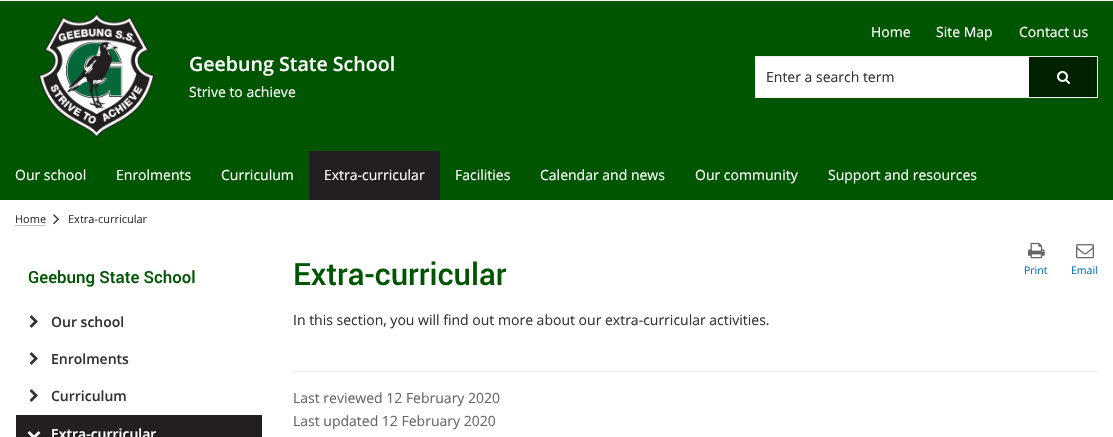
#include "include/core/SkBlurTypes.h"
#include "include/core/SkCanvas.h"
#include "include/core/SkData.h"
#include "include/core/SkFont.h"
#include "include/core/SkFontMgr.h"
#include "include/core/SkImage.h"
#include "include/core/SkMaskFilter.h"
#include "include/core/SkPaint.h"
#include "include/core/SkPathBuilder.h"
#include "include/core/SkTextBlob.h"
#include "include/effects/SkDashPathEffect.h"
#include "include/effects/SkGradientShader.h"
#include "include/utils/SkParsePath.h"

extern sk_sp<SkFontMgr> fontMgr;

void draw(SkCanvas* canvas) {
  SkPaint p;
  p.setAntiAlias(true);
  canvas->clear(SK_ColorWHITE);
  p.setColor(SkColorSetRGB(243, 243, 243));
  canvas->drawRect(SkRect::MakeLTRB(0, 0, 1113, 1), p);
  p.setColor(SkColorSetRGB(0, 85, 1));
  canvas->drawRect(SkRect::MakeLTRB(0, 1, 1113, 200), p);
  canvas->drawImageRect(SkImages::DeferredFromEncodedData(SkData::MakeFromFileName("images/1.png")), SkRect::MakeLTRB(38, 11, 155, 138), SkSamplingOptions());
  p.setStyle(SkPaint::kStroke_Style);
  p.setStrokeWidth(1);
  p.setColor(SkColorSetRGB(239, 239, 239));
  canvas->drawRect(SkRect::MakeLTRB(755.5f, 56.5f, 1097.5f, 97.5f), p);
  p.setStyle(SkPaint::kFill_Style);
  p.setColor(SK_ColorWHITE);
  canvas->drawRect(SkRect::MakeLTRB(756, 57, 1029, 97), p);
  p.setColor(SkColorSetRGB(0, 34, 0));
  canvas->drawRect(SkRect::MakeLTRB(1029, 57, 1097, 97), p);
  canvas->drawImageRect(SkImages::DeferredFromEncodedData(SkData::MakeFromFileName("images/2.png")), SkRect::MakeLTRB(1057, 71, 1070, 84), SkSamplingOptions());
  p.setColor(SkColorSetRGB(35, 31, 32));
  canvas->drawRect(SkRect::MakeLTRB(309, 151, 440, 200), p);
  p.setColor(SkColorSetRGB(191, 191, 191));
  canvas->drawRect(SkRect::MakeLTRB(15, 225, 46, 226), p);
  canvas->drawImageRect(SkImages::DeferredFromEncodedData(SkData::MakeFromFileName("images/3.png")), SkRect::MakeLTRB(53, 214, 59, 225), SkSamplingOptions());
  canvas->drawImageRect(SkImages::DeferredFromEncodedData(SkData::MakeFromFileName("images/4.png")), SkRect::MakeLTRB(29, 315, 38, 328), SkSamplingOptions());
  canvas->drawImageRect(SkImages::DeferredFromEncodedData(SkData::MakeFromFileName("images/4.png")), SkRect::MakeLTRB(29, 352, 38, 365), SkSamplingOptions());
  canvas->drawImageRect(SkImages::DeferredFromEncodedData(SkData::MakeFromFileName("images/4.png")), SkRect::MakeLTRB(29, 389, 38, 402), SkSamplingOptions());
  p.setColor(SkColorSetRGB(35, 31, 32));
  canvas->drawRect(SkRect::MakeLTRB(16, 415, 262, 437), p);
  canvas->drawImageRect(SkImages::DeferredFromEncodedData(SkData::MakeFromFileName("images/5.png")), SkRect::MakeLTRB(27, 431, 41, 437), SkSamplingOptions());
  canvas->drawImageRect(SkImages::DeferredFromEncodedData(SkData::MakeFromFileName("images/6.png")), SkRect::MakeLTRB(1028, 242, 1045, 259), SkSamplingOptions());
  canvas->drawImageRect(SkImages::DeferredFromEncodedData(SkData::MakeFromFileName("images/7.png")), SkRect::MakeLTRB(1076, 244, 1094, 259), SkSamplingOptions());
  p.setColor(SkColorSetRGB(234, 234, 234));
  canvas->drawRect(SkRect::MakeLTRB(293, 371, 1098, 372), p);
  SkFont font1(fontMgr->matchFamilyStyle("Open Sans", SkFontStyle(600, SkFontStyle::kNormal_Width, SkFontStyle::kUpright_Slant)), 19.6f);
  font1.setSubpixel(true);
  p.setColor(SK_ColorWHITE);
  canvas->drawString("Geebung State School", 189, 71, font1, p);
  SkFont font2(fontMgr->matchFamilyStyle("Open Sans", SkFontStyle::Normal()), 14);
  font2.setSubpixel(true);
  canvas->drawString("Strive to achieve", 189, 97, font2, p);
  canvas->drawString("Home", 871, 37, font2, p);
  canvas->drawString("Site Map", 936, 37, font2, p);
  canvas->drawString("Contact us", 1019, 37, font2, p);
  p.setColor(SkColorSetRGB(51, 51, 51));
  canvas->drawString("Enter a search term", 766, 82, font2, p);
  p.setColor(SK_ColorWHITE);
  canvas->drawString("Our school", 15, 180, font2, p);
  canvas->drawString("Enrolments", 116, 180, font2, p);
  canvas->drawString("Curriculum", 221, 180, font2, p);
  canvas->drawString("Extra-curricular", 324, 180, font2, p);
  canvas->drawString("Facilities", 455, 180, font2, p);
  canvas->drawString("Calendar and news", 540, 180, font2, p);
  canvas->drawString("Our community", 695, 180, font2, p);
  canvas->drawString("Support and resources", 828, 180, font2, p);
  SkFont font3(fontMgr->matchFamilyStyle("Open Sans", SkFontStyle::Normal()), 11);
  font3.setSubpixel(true);
  p.setColor(SkColorSetRGB(51, 51, 51));
  canvas->drawString("Home", 15, 223, font3, p);
  canvas->drawString("Extra-curricular", 68, 223, font3, p);
  SkFont font4(fontMgr->matchFamilyStyle("Roboto", SkFontStyle(500, SkFontStyle::kNormal_Width, SkFontStyle::kUpright_Slant)), 16.75f);
  font4.setSubpixel(true);
  p.setColor(SkColorSetRGB(0, 85, 1));
  canvas->drawString("Geebung State School", 28, 283, font4, p);
  SkFont font5(fontMgr->matchFamilyStyle("Open Sans", SkFontStyle(600, SkFontStyle::kNormal_Width, SkFontStyle::kUpright_Slant)), 14);
  font5.setSubpixel(true);
  p.setColor(SkColorSetRGB(51, 51, 51));
  canvas->drawString("Our school", 51, 327, font5, p);
  canvas->drawString("Enrolments", 51, 364, font5, p);
  canvas->drawString("Curriculum", 51, 401, font5, p);
  p.setColor(SK_ColorWHITE);
  canvas->drawString("Extra-curricular", 51, 439, font5, p);
  SkFont font6(fontMgr->matchFamilyStyle("Roboto", SkFontStyle(500, SkFontStyle::kNormal_Width, SkFontStyle::kUpright_Slant)), 30.75f);
  font6.setSubpixel(true);
  p.setColor(SkColorSetRGB(0, 85, 1));
  canvas->drawString("Extra-curricular", 293, 285, font6, p);
  SkFont font7(fontMgr->matchFamilyStyle("Open Sans", SkFontStyle::Normal()), 10.5f);
  font7.setSubpixel(true);
  p.setColor(SkColorSetRGB(0, 114, 198));
  canvas->drawString("Print", 1024, 274, font7, p);
  canvas->drawString("Email", 1071, 274, font7, p);
  p.setColor(SkColorSetRGB(51, 51, 51));
  canvas->drawString("In this section, you will find out more about our extra-curricular activities.", 293, 325, font2, p);
  p.setColor(SkColorSetRGB(102, 102, 102));
  canvas->drawString("Last reviewed 12 February 2020", 293, 403, font2, p);
  canvas->drawString("Last updated 12 February 2020", 293, 426, font2, p);
}
